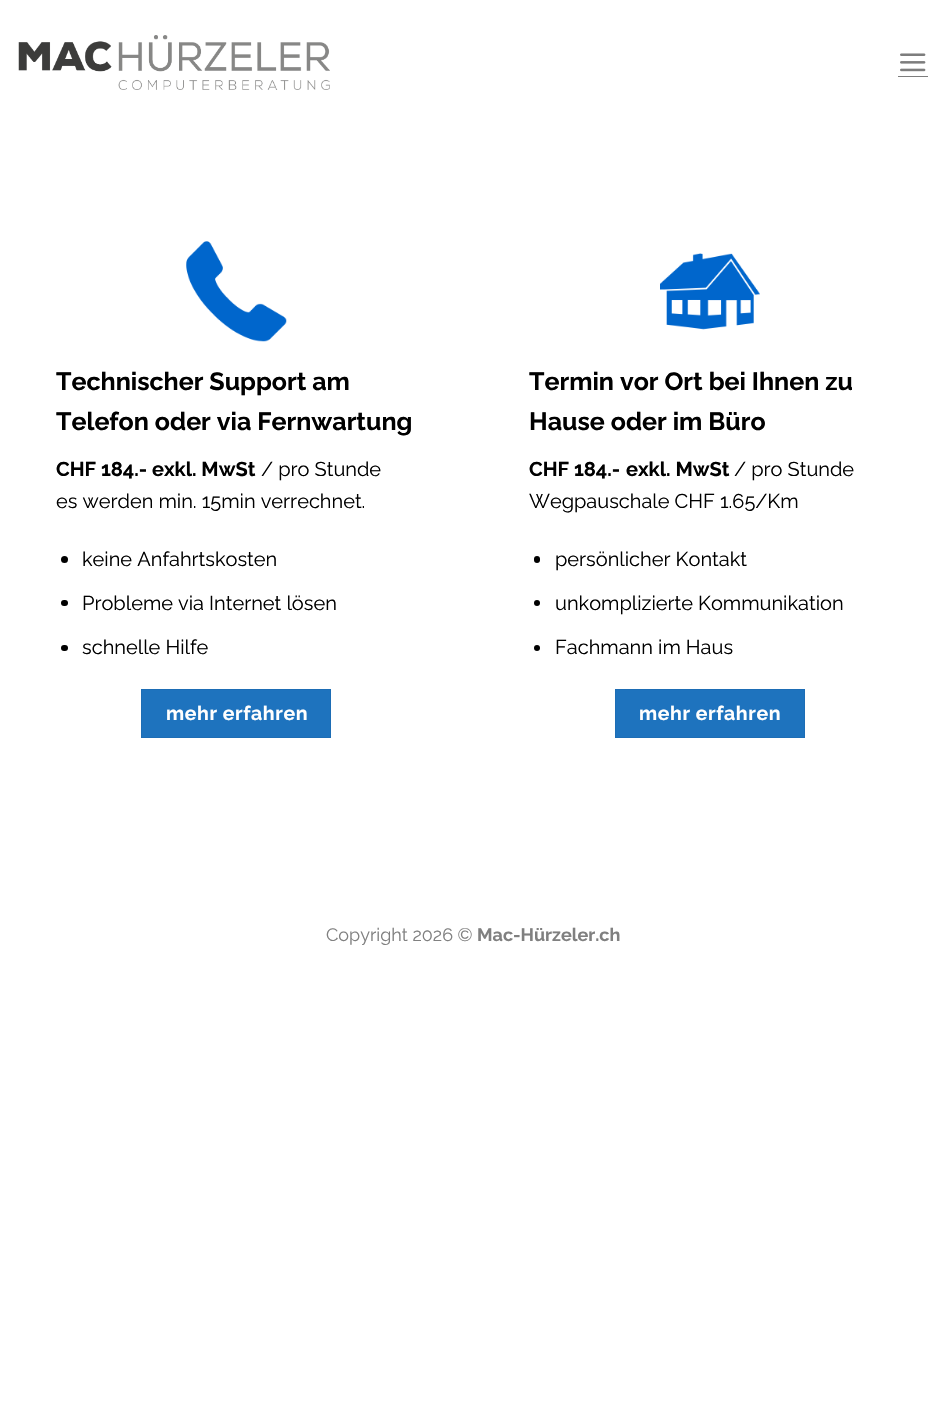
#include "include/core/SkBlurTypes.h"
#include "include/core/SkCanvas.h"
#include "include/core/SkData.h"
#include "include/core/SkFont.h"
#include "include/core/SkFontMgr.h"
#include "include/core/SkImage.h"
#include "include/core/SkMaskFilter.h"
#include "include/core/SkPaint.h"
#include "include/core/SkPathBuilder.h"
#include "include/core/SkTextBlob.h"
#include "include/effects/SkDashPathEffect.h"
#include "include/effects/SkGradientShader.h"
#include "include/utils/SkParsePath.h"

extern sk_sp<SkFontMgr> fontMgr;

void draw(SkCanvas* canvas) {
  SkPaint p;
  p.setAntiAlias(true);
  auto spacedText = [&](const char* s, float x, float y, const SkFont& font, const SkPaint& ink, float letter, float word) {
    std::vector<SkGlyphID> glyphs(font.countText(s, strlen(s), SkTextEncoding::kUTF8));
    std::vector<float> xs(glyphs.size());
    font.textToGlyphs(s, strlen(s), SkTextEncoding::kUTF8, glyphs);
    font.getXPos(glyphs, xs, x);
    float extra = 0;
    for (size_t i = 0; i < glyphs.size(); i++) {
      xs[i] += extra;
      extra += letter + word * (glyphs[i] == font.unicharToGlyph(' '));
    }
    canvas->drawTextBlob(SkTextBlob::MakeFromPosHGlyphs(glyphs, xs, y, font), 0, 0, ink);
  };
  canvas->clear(SK_ColorWHITE);
  canvas->drawImageRect(SkImages::DeferredFromEncodedData(SkData::MakeFromFileName("images/1.png")), SkRect::MakeLTRB(18, 35, 330, 90), SkSamplingOptions());
  canvas->drawImageRect(SkImages::DeferredFromEncodedData(SkData::MakeFromFileName("images/2.png")), SkRect::MakeLTRB(900, 53, 926, 72), SkSamplingOptions());
  p.setColor(SkColorSetRGB(125, 125, 125));
  canvas->drawRect(SkRect::MakeLTRB(898, 76, 928, 77), p);
  canvas->drawImageRect(SkImages::DeferredFromEncodedData(SkData::MakeFromFileName("images/3.png")), SkRect::MakeLTRB(186, 241, 287, 342), SkSamplingOptions());
  p.setColor(SK_ColorBLACK);
  canvas->drawCircle(64.5f, 559.5f, 3.5f, p);
  canvas->drawRoundRect(SkRect::MakeLTRB(61, 600, 68, 606), 3, 3, p);
  canvas->drawRoundRect(SkRect::MakeLTRB(61, 645, 68, 651), 3, 3, p);
  p.setColor(SkColorSetRGB(30, 115, 190));
  canvas->drawRect(SkRect::MakeLTRB(141.5f, 689.5f, 330.5f, 737.5f), p);
  p.setStyle(SkPaint::kStroke_Style);
  p.setStrokeWidth(1);
  p.setColor(SkColorSetRGB(29, 109, 181));
  canvas->drawRect(SkRect::MakeLTRB(141.5f, 689.5f, 330.5f, 737.5f), p);
  canvas->drawImageRect(SkImages::DeferredFromEncodedData(SkData::MakeFromFileName("images/4.png")), SkRect::MakeLTRB(660, 253, 760, 330), SkSamplingOptions());
  p.setStyle(SkPaint::kFill_Style);
  p.setColor(SK_ColorBLACK);
  canvas->drawRoundRect(SkRect::MakeLTRB(534, 556, 540, 563), 3, 3, p);
  canvas->drawCircle(537, 603, 3, p);
  canvas->drawCircle(537, 648, 3, p);
  p.setColor(SkColorSetRGB(30, 115, 190));
  canvas->drawRect(SkRect::MakeLTRB(615.5f, 689.5f, 804.5f, 737.5f), p);
  p.setStyle(SkPaint::kStroke_Style);
  p.setColor(SkColorSetRGB(29, 109, 181));
  canvas->drawRect(SkRect::MakeLTRB(615.5f, 689.5f, 804.5f, 737.5f), p);
  SkFont font1(fontMgr->matchFamilyStyle("Raleway", SkFontStyle::Bold()), 25);
  font1.setSubpixel(true);
  p.setStyle(SkPaint::kFill_Style);
  p.setColor(SK_ColorBLACK);
  canvas->drawString("Technischer Support am", 56, 390, font1, p);
  canvas->drawString("Telefon oder via Fernwartung", 56, 430, font1, p);
  SkFont font2(fontMgr->matchFamilyStyle("Raleway", SkFontStyle::Bold()), 20);
  font2.setSubpixel(true);
  canvas->drawString("CHF 184.- exkl. MwSt", 56, 476, font2, p);
  SkFont font3(fontMgr->matchFamilyStyle("Raleway", SkFontStyle::Normal()), 20);
  font3.setSubpixel(true);
  canvas->drawString("/ pro Stunde", 261, 476, font3, p);
  canvas->drawString("es werden min. 15min verrechnet.", 56, 508, font3, p);
  canvas->drawString("keine Anfahrtskosten", 82, 566, font3, p);
  canvas->drawString("Probleme via Internet lösen", 82, 610, font3, p);
  canvas->drawString("schnelle Hilfe", 82, 654, font3, p);
  SkFont font4(fontMgr->matchFamilyStyle("Raleway", SkFontStyle::Bold()), 19.5f);
  font4.setSubpixel(true);
  p.setColor(SK_ColorWHITE);
  spacedText("mehr erfahren", 166, 720, font4, p, 0.6f, 0);
  p.setColor(SK_ColorBLACK);
  canvas->drawString("Termin vor Ort bei Ihnen zu", 529, 390, font1, p);
  canvas->drawString("Hause oder im Büro", 529, 430, font1, p);
  canvas->drawString("CHF 184.-", 529, 476, font2, p);
  canvas->drawString("exkl. MwSt", 626, 476, font2, p);
  canvas->drawString("/ pro Stunde", 734, 476, font3, p);
  canvas->drawString("Wegpauschale CHF 1.65/Km", 529, 508, font3, p);
  canvas->drawString("persönlicher Kontakt", 555, 566, font3, p);
  canvas->drawString("unkomplizierte Kommunikation", 555, 610, font3, p);
  canvas->drawString("Fachmann im Haus", 555, 654, font3, p);
  p.setColor(SK_ColorWHITE);
  spacedText("mehr erfahren", 639, 720, font4, p, 0.6f, 0);
  SkFont font5(fontMgr->matchFamilyStyle("Raleway", SkFontStyle::Normal()), 18);
  font5.setSubpixel(true);
  p.setColor(SkColorSetRGB(128, 128, 128));
  canvas->drawString("Copyright 2026 ©", 326, 941, font5, p);
  SkFont font6(fontMgr->matchFamilyStyle("Raleway", SkFontStyle::Bold()), 18);
  font6.setSubpixel(true);
  canvas->drawString("Mac-Hürzeler.ch", 477, 941, font6, p);
}
